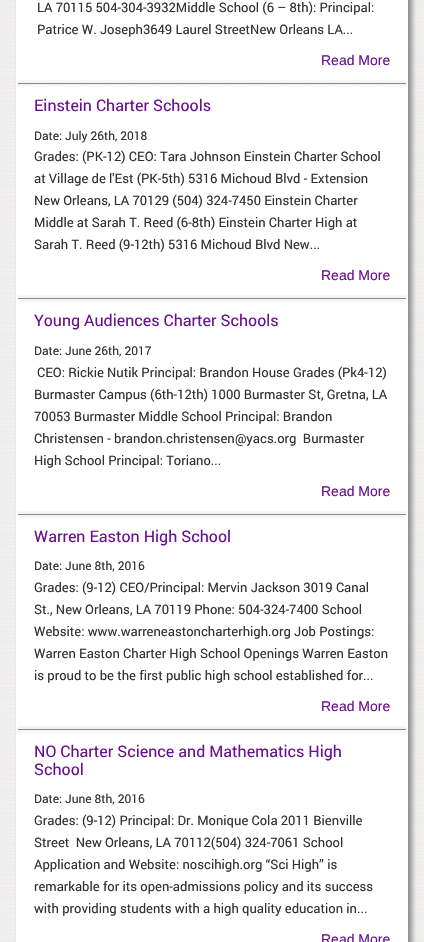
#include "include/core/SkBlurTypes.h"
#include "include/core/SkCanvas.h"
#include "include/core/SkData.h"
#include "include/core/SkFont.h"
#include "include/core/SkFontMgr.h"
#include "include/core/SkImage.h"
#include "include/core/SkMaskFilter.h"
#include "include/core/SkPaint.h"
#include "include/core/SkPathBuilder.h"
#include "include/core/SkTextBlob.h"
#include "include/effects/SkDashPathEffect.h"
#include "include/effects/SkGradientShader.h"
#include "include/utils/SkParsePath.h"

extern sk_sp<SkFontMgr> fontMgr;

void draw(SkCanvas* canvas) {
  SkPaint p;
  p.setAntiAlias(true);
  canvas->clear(SK_ColorWHITE);
  canvas->drawImageRect(SkImages::DeferredFromEncodedData(SkData::MakeFromFileName("images/1.png")), SkRect::MakeLTRB(0, 0, 424, 942), SkSamplingOptions());
  p.setColor(SkColorSetRGB(140, 140, 140));
  p.setMaskFilter(SkMaskFilter::MakeBlur(kNormal_SkBlurStyle, 2.5f));
  canvas->drawRect(SkRect::MakeLTRB(20, -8, 412, 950), p);
  p.setMaskFilter(nullptr);
  p.setColor(SK_ColorWHITE);
  canvas->drawRect(SkRect::MakeLTRB(16, 0, 408, 942), p);
  canvas->drawImageRect(SkImages::DeferredFromEncodedData(SkData::MakeFromFileName("images/2.png")), SkRect::MakeLTRB(18, 80, 406, 87), SkSamplingOptions());
  canvas->drawImageRect(SkImages::DeferredFromEncodedData(SkData::MakeFromFileName("images/2.png")), SkRect::MakeLTRB(18, 295, 406, 302), SkSamplingOptions());
  canvas->drawImageRect(SkImages::DeferredFromEncodedData(SkData::MakeFromFileName("images/2.png")), SkRect::MakeLTRB(18, 511, 406, 518), SkSamplingOptions());
  canvas->drawImageRect(SkImages::DeferredFromEncodedData(SkData::MakeFromFileName("images/2.png")), SkRect::MakeLTRB(18, 726, 406, 733), SkSamplingOptions());
  SkFont font1(fontMgr->matchFamilyStyle("Roboto", SkFontStyle::Normal()), 13);
  font1.setSubpixel(true);
  p.setColor(SkColorSetRGB(50, 49, 49));
  canvas->drawString("LA 70115 504-304-3932Middle School (6 – 8th): Principal:", 37, 12, font1, p);
  canvas->drawString("Patrice W. Joseph3649 Laurel StreetNew Orleans LA...", 37, 34, font1, p);
  SkFont font2(fontMgr->matchFamilyStyle("Liberation Sans", SkFontStyle::Normal()), 14);
  font2.setSubpixel(true);
  p.setColor(SkColorSetRGB(107, 15, 144));
  canvas->drawString("Read More", 321, 65, font2, p);
  SkFont font3(fontMgr->matchFamilyStyle("Roboto", SkFontStyle::Normal()), 16);
  font3.setSubpixel(true);
  canvas->drawString("Einstein Charter Schools", 34, 111, font3, p);
  SkFont font4(fontMgr->matchFamilyStyle("Roboto", SkFontStyle::Normal()), 12);
  font4.setSubpixel(true);
  p.setColor(SkColorSetRGB(50, 49, 49));
  canvas->drawString("Date: July 26th, 2018", 34, 140, font4, p);
  canvas->drawString("Grades: (PK-12) CEO: Tara Johnson Einstein Charter School", 34, 161, font1, p);
  canvas->drawString("at Village de l'Est (PK-5th) 5316 Michoud Blvd - Extension", 34, 183, font1, p);
  canvas->drawString("New Orleans, LA 70129 (504) 324-7450 Einstein Charter", 34, 205, font1, p);
  canvas->drawString("Middle at Sarah T. Reed (6-8th) Einstein Charter High at", 34, 227, font1, p);
  canvas->drawString("Sarah T. Reed (9-12th) 5316 Michoud Blvd New...", 34, 249, font1, p);
  p.setColor(SkColorSetRGB(107, 15, 144));
  canvas->drawString("Read More", 321, 280, font2, p);
  canvas->drawString("Young Audiences Charter Schools", 34, 326, font3, p);
  p.setColor(SkColorSetRGB(50, 49, 49));
  canvas->drawString("Date: June 26th, 2017", 34, 355, font4, p);
  canvas->drawString("CEO: Rickie Nutik Principal: Brandon House Grades (Pk4-12)", 37, 377, font1, p);
  canvas->drawString("Burmaster Campus (6th-12th) 1000 Burmaster St, Gretna, LA", 34, 399, font1, p);
  canvas->drawString("70053 Burmaster Middle School Principal: Brandon", 34, 421, font1, p);
  canvas->drawString("Christensen - brandon.christensen@yacs.org  Burmaster", 34, 443, font1, p);
  canvas->drawString("High School Principal: Toriano...", 34, 465, font1, p);
  p.setColor(SkColorSetRGB(107, 15, 144));
  canvas->drawString("Read More", 321, 496, font2, p);
  canvas->drawString("Warren Easton High School", 34, 542, font3, p);
  p.setColor(SkColorSetRGB(50, 49, 49));
  canvas->drawString("Date: June 8th, 2016", 34, 570, font4, p);
  canvas->drawString("Grades: (9-12) CEO/Principal: Mervin Jackson 3019 Canal", 34, 592, font1, p);
  canvas->drawString("St., New Orleans, LA 70119 Phone: 504-324-7400 School", 34, 614, font1, p);
  canvas->drawString("Website: www.warreneastoncharterhigh.org Job Postings:", 34, 636, font1, p);
  canvas->drawString("Warren Easton Charter High School Openings Warren Easton", 34, 658, font1, p);
  canvas->drawString("is proud to be the first public high school established for...", 34, 680, font1, p);
  p.setColor(SkColorSetRGB(107, 15, 144));
  canvas->drawString("Read More", 321, 711, font2, p);
  canvas->drawString("NO Charter Science and Mathematics High", 34, 757, font3, p);
  canvas->drawString("School", 34, 775, font3, p);
  p.setColor(SkColorSetRGB(50, 49, 49));
  canvas->drawString("Date: June 8th, 2016", 34, 803, font4, p);
  canvas->drawString("Grades: (9-12) Principal: Dr. Monique Cola 2011 Bienville", 34, 825, font1, p);
  canvas->drawString("Street  New Orleans, LA 70112(504) 324-7061 School", 34, 847, font1, p);
  canvas->drawString("Application and Website: noscihigh.org “Sci High” is", 34, 869, font1, p);
  canvas->drawString("remarkable for its open-admissions policy and its success", 34, 891, font1, p);
  canvas->drawString("with providing students with a high quality education in...", 34, 913, font1, p);
  p.setColor(SkColorSetRGB(107, 15, 144));
  canvas->drawString("Read More", 321, 944, font2, p);
}
